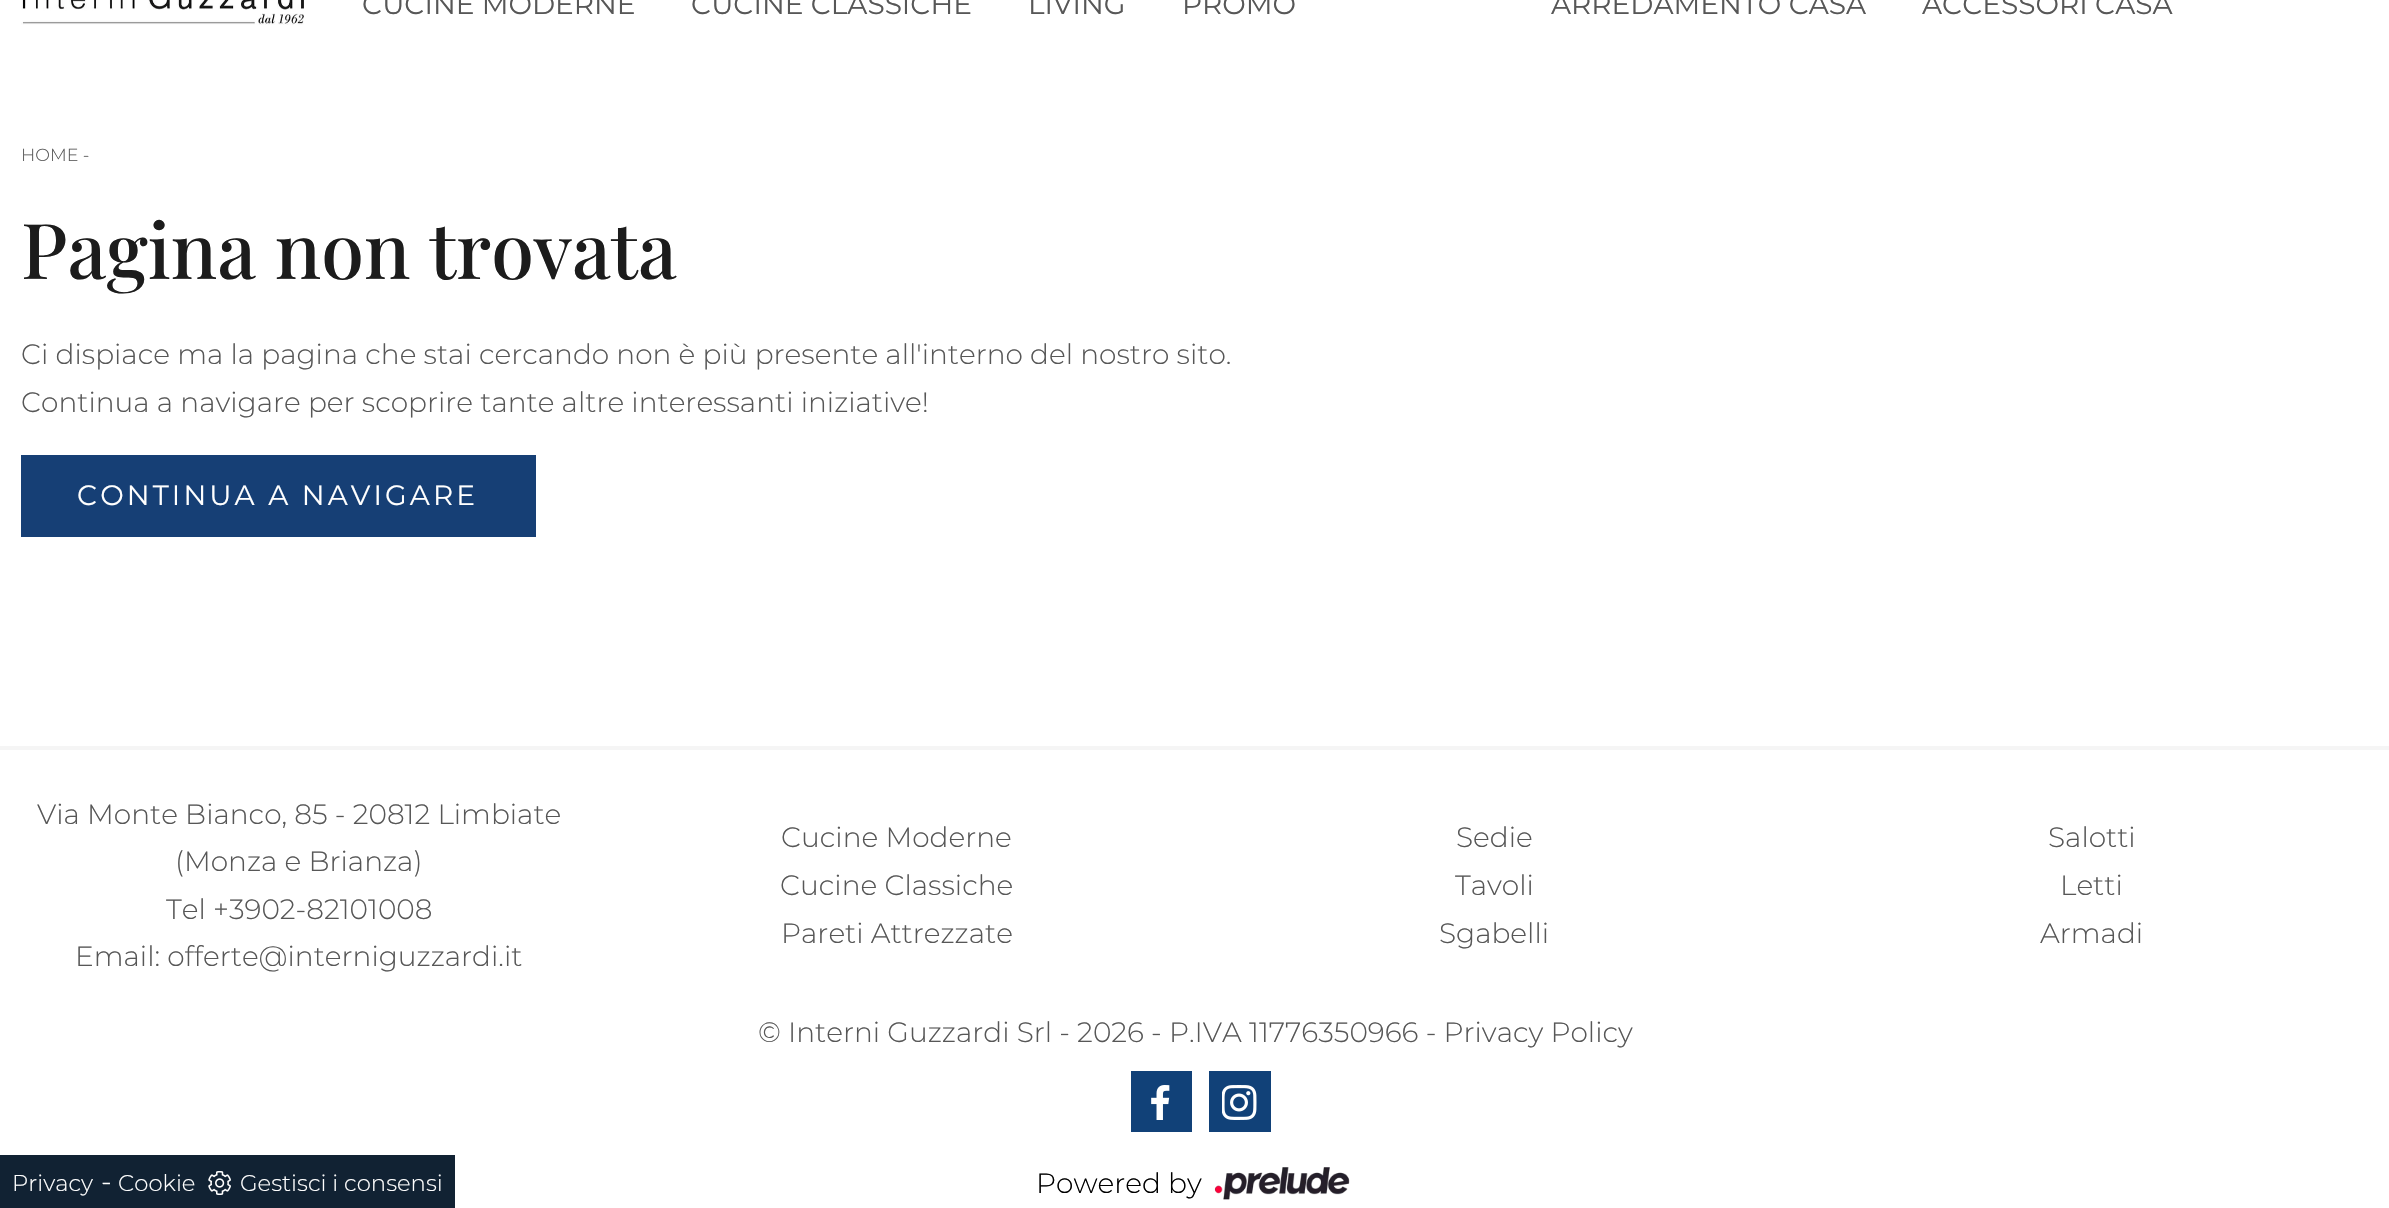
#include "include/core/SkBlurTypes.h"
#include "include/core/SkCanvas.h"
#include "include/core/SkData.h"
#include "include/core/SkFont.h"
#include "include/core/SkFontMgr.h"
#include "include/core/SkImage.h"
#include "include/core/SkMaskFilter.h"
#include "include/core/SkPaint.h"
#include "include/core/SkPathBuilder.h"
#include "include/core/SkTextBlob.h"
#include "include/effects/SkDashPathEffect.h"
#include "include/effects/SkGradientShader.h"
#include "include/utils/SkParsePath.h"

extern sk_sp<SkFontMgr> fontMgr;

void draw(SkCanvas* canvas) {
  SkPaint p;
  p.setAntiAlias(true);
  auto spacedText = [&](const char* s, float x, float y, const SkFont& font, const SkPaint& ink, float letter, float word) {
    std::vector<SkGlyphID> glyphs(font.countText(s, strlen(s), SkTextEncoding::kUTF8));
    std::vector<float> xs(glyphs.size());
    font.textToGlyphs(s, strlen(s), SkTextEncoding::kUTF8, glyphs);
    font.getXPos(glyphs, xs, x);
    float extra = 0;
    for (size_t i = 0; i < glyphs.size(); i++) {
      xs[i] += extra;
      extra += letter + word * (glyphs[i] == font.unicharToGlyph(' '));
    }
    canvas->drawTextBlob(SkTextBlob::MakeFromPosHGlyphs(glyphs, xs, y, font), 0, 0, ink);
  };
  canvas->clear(SK_ColorWHITE);
  canvas->drawImageRect(SkImages::DeferredFromEncodedData(SkData::MakeFromFileName("images/1.png")), SkRect::MakeLTRB(21, 0, 304, 25), SkSamplingOptions());
  p.setColor(SkColorSetRGB(22, 63, 117));
  canvas->drawRect(SkRect::MakeLTRB(21, 455, 536, 537), p);
  p.setColor(SkColorSetRGB(245, 245, 245));
  canvas->drawRect(SkRect::MakeLTRB(0, 746, 2389, 750), p);
  p.setColor(SkColorSetRGB(17, 65, 120));
  canvas->drawRect(SkRect::MakeLTRB(1131, 1071, 1192, 1132), p);
  canvas->drawImageRect(SkImages::DeferredFromEncodedData(SkData::MakeFromFileName("images/2.png")), SkRect::MakeLTRB(1151, 1085, 1170, 1120), SkSamplingOptions());
  canvas->drawRect(SkRect::MakeLTRB(1209, 1071, 1271, 1132), p);
  canvas->drawImageRect(SkImages::DeferredFromEncodedData(SkData::MakeFromFileName("images/3.png")), SkRect::MakeLTRB(1222, 1085, 1257, 1120), SkSamplingOptions());
  canvas->drawImageRect(SkImages::DeferredFromEncodedData(SkData::MakeFromFileName("images/4.png")), SkRect::MakeLTRB(1214, 1167, 1350, 1200), SkSamplingOptions());
  p.setColor(SkColorSetRGB(17, 34, 51));
  canvas->drawRect(SkRect::MakeLTRB(0, 1155, 455, 1208), p);
  canvas->drawImageRect(SkImages::DeferredFromEncodedData(SkData::MakeFromFileName("images/5.png")), SkRect::MakeLTRB(208, 1171, 231, 1195), SkSamplingOptions());
  SkFont font1(fontMgr->matchFamilyStyle("Montserrat", SkFontStyle::Normal()), 28);
  font1.setSubpixel(true);
  p.setColor(SkColorSetRGB(87, 87, 87));
  canvas->drawString("CUCINE MODERNE", 362, 14, font1, p);
  canvas->drawString("CUCINE CLASSICHE", 691, 14, font1, p);
  canvas->drawString("LIVING", 1028, 14, font1, p);
  canvas->drawString("PROMO", 1182, 14, font1, p);
  canvas->drawString("ARREDAMENTO CASA", 1551, 14, font1, p);
  canvas->drawString("ACCESSORI CASA", 1922, 14, font1, p);
  SkFont font2(fontMgr->matchFamilyStyle("Montserrat", SkFontStyle(300, SkFontStyle::kNormal_Width, SkFontStyle::kUpright_Slant)), 17.5f);
  font2.setSubpixel(true);
  canvas->drawString("HOME -", 21, 161, font2, p);
  SkFont font3(fontMgr->matchFamilyStyle("Playfair Display", SkFontStyle(500, SkFontStyle::kNormal_Width, SkFontStyle::kUpright_Slant)), 77);
  font3.setSubpixel(true);
  p.setColor(SkColorSetRGB(28, 28, 28));
  canvas->drawString("Pagina non trovata", 21, 279, font3, p);
  SkFont font4(fontMgr->matchFamilyStyle("Montserrat", SkFontStyle(300, SkFontStyle::kNormal_Width, SkFontStyle::kUpright_Slant)), 28);
  font4.setSubpixel(true);
  p.setColor(SkColorSetRGB(87, 87, 87));
  canvas->drawString("Ci dispiace ma la pagina che stai cercando non è più presente all'interno del nostro sito.", 21, 364, font4, p);
  canvas->drawString("Continua a navigare per scoprire tante altre interessanti iniziative!", 21, 412, font4, p);
  p.setColor(SK_ColorWHITE);
  spacedText("CONTINUA A NAVIGARE", 77, 505, font1, p, 3.1f, 0);
  p.setColor(SkColorSetRGB(87, 87, 87));
  canvas->drawString("Via Monte Bianco, 85 - 20812 Limbiate", 37, 824, font4, p);
  canvas->drawString("(Monza e Brianza)", 175, 871, font4, p);
  canvas->drawString("Tel +3902-82101008", 166, 919, font4, p);
  canvas->drawString("Email: offerte@interniguzzardi.it", 75, 966, font4, p);
  canvas->drawString("Cucine Moderne", 781, 847, font4, p);
  canvas->drawString("Cucine Classiche", 780, 895, font4, p);
  canvas->drawString("Pareti Attrezzate", 781, 943, font4, p);
  canvas->drawString("Sedie", 1456, 847, font4, p);
  canvas->drawString("Tavoli", 1455, 895, font4, p);
  canvas->drawString("Sgabelli", 1439, 943, font4, p);
  canvas->drawString("Salotti", 2048, 847, font4, p);
  canvas->drawString("Letti", 2060, 895, font4, p);
  canvas->drawString("Armadi", 2040, 943, font4, p);
  canvas->drawString("© Interni Guzzardi Srl - 2026 - P.IVA 11776350966 - Privacy Policy", 758, 1042, font4, p);
  p.setColor(SK_ColorBLACK);
  canvas->drawString("Powered by", 1036, 1193, font4, p);
  SkFont font5(fontMgr->matchFamilyStyle("Montserrat", SkFontStyle(300, SkFontStyle::kNormal_Width, SkFontStyle::kUpright_Slant)), 22.75f);
  font5.setSubpixel(true);
  p.setColor(SK_ColorWHITE);
  canvas->drawString("Privacy", 12, 1191, font5, p);
  canvas->drawString("-", 101, 1191, font4, p);
  canvas->drawString("Cookie", 118, 1191, font5, p);
  canvas->drawString("Gestisci i consensi", 240, 1191, font5, p);
}
